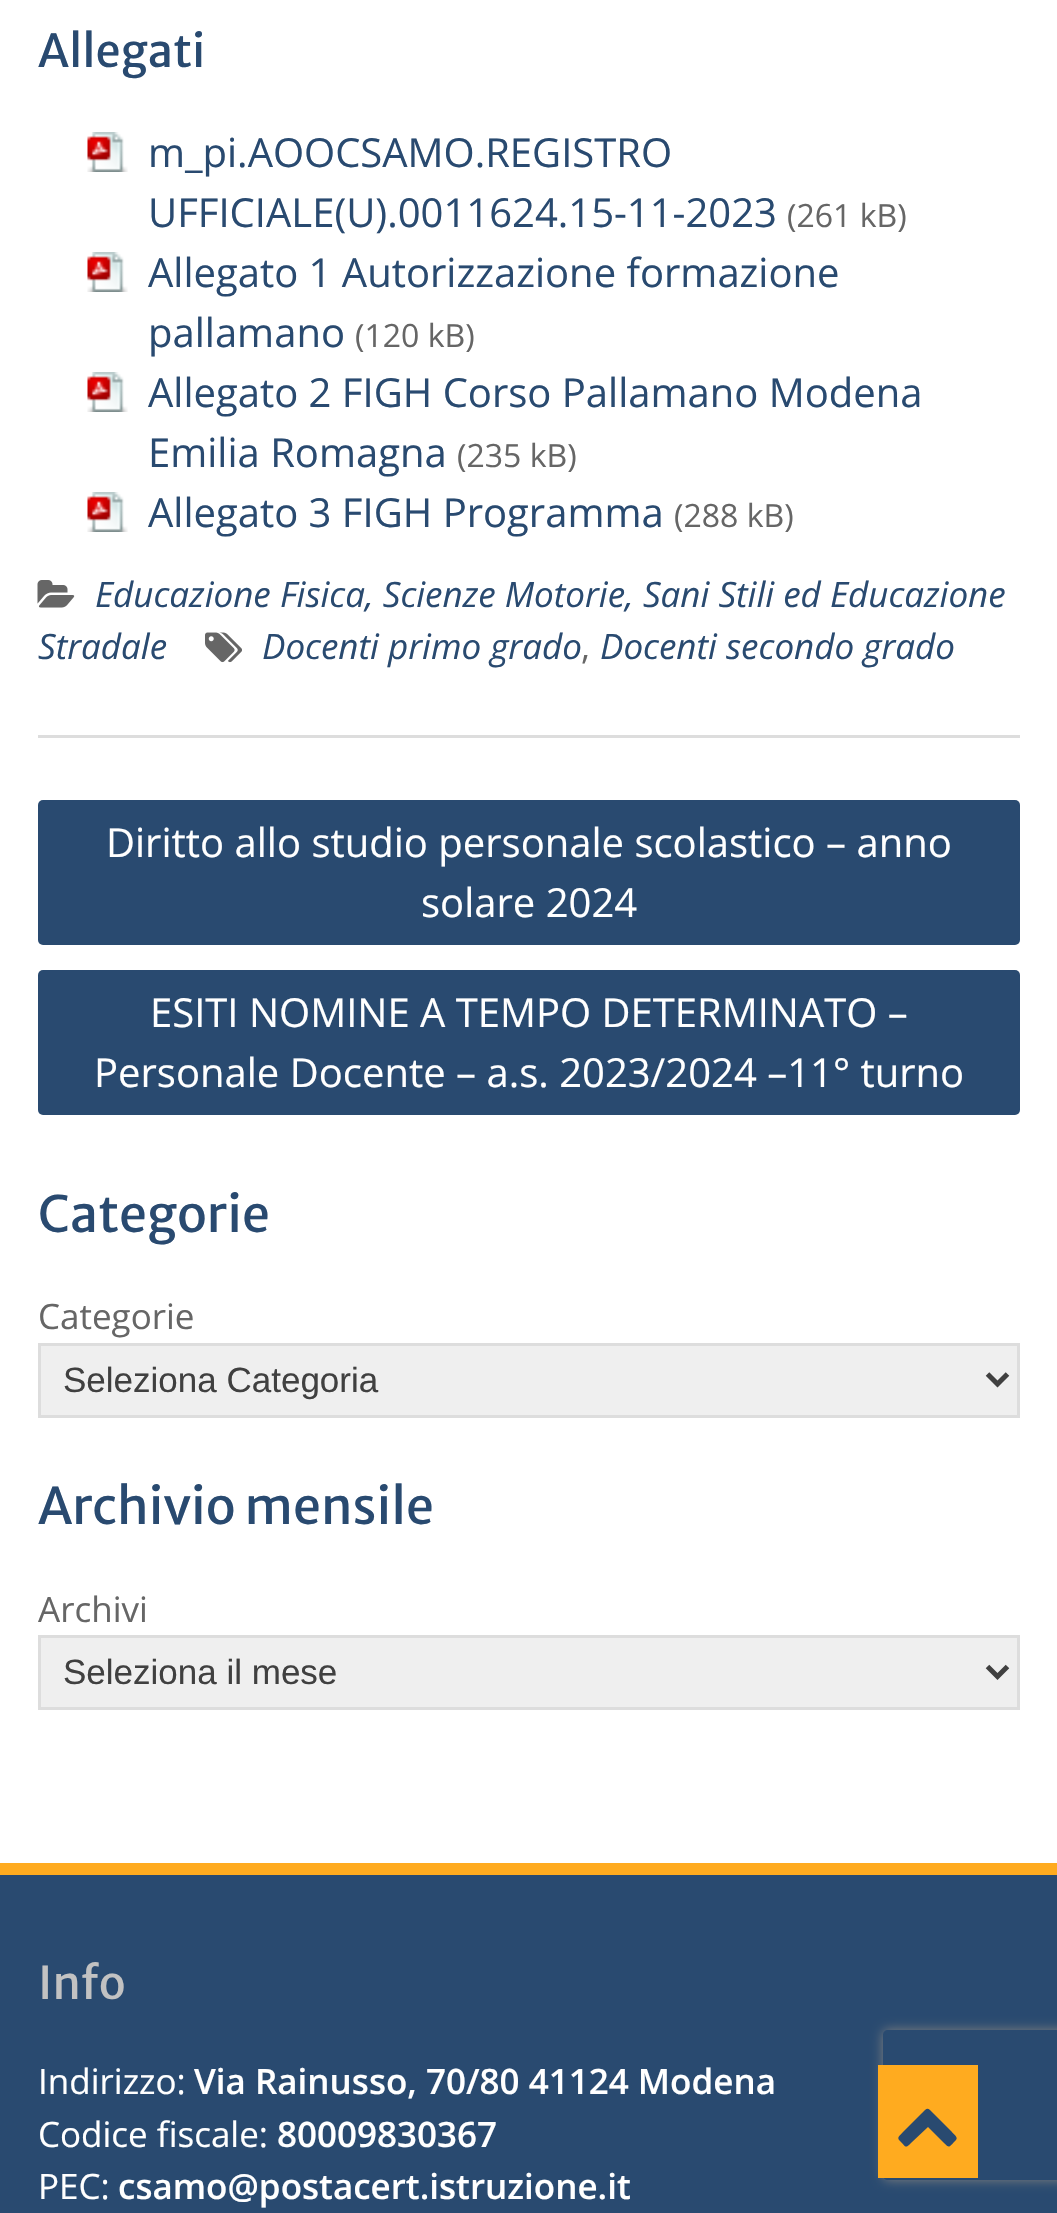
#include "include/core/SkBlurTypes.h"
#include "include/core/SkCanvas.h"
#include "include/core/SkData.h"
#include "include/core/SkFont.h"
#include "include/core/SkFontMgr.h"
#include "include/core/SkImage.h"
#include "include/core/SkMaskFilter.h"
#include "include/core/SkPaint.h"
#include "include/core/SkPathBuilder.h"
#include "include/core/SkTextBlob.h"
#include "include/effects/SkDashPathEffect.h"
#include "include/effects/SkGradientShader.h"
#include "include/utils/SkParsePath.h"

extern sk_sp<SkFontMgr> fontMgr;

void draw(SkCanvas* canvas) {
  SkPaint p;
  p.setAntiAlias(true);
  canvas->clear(SK_ColorWHITE);
  p.setColor(SkColorSetRGB(221, 221, 221));
  canvas->drawRect(SkRect::MakeLTRB(38, 735, 1020, 738), p);
  canvas->drawImageRect(SkImages::DeferredFromEncodedData(SkData::MakeFromFileName("images/1.png")), SkRect::MakeLTRB(87, 132, 128, 172), SkSamplingOptions());
  canvas->drawImageRect(SkImages::DeferredFromEncodedData(SkData::MakeFromFileName("images/1.png")), SkRect::MakeLTRB(87, 252, 128, 292), SkSamplingOptions());
  canvas->drawImageRect(SkImages::DeferredFromEncodedData(SkData::MakeFromFileName("images/1.png")), SkRect::MakeLTRB(87, 372, 128, 412), SkSamplingOptions());
  canvas->drawImageRect(SkImages::DeferredFromEncodedData(SkData::MakeFromFileName("images/1.png")), SkRect::MakeLTRB(87, 492, 128, 532), SkSamplingOptions());
  canvas->drawImageRect(SkImages::DeferredFromEncodedData(SkData::MakeFromFileName("images/2.png")), SkRect::MakeLTRB(37, 580, 75, 608), SkSamplingOptions());
  canvas->drawImageRect(SkImages::DeferredFromEncodedData(SkData::MakeFromFileName("images/3.png")), SkRect::MakeLTRB(205, 632, 242, 663), SkSamplingOptions());
  p.setColor(SkColorSetRGB(41, 74, 112));
  canvas->drawRoundRect(SkRect::MakeLTRB(38, 800, 1020, 945), 5, 5, p);
  canvas->drawRoundRect(SkRect::MakeLTRB(38, 970, 1020, 1115), 5, 5, p);
  p.setColor(SkColorSetRGB(239, 239, 239));
  canvas->drawRect(SkRect::MakeLTRB(39.5f, 1344.5f, 1018.5f, 1416.5f), p);
  p.setStyle(SkPaint::kStroke_Style);
  p.setStrokeWidth(3);
  p.setColor(SkColorSetRGB(221, 221, 221));
  canvas->drawRect(SkRect::MakeLTRB(39.5f, 1344.5f, 1018.5f, 1416.5f), p);
  p.setStrokeWidth(5);
  p.setColor(SkColorSetRGB(64, 64, 64));
  canvas->drawPath(SkPathBuilder().moveTo(987.5f, 1374).lineTo(997.5f, 1384).lineTo(1007.5f, 1374).detach(), p);
  p.setStyle(SkPaint::kFill_Style);
  p.setColor(SkColorSetRGB(239, 239, 239));
  canvas->drawRect(SkRect::MakeLTRB(39.5f, 1636.5f, 1018.5f, 1708.5f), p);
  p.setStyle(SkPaint::kStroke_Style);
  p.setStrokeWidth(3);
  p.setColor(SkColorSetRGB(221, 221, 221));
  canvas->drawRect(SkRect::MakeLTRB(39.5f, 1636.5f, 1018.5f, 1708.5f), p);
  p.setStrokeWidth(5);
  p.setColor(SkColorSetRGB(64, 64, 64));
  canvas->drawPath(SkPathBuilder().moveTo(987.5f, 1666.5f).lineTo(997.5f, 1676.5f).lineTo(1007.5f, 1666.5f).detach(), p);
  p.setStyle(SkPaint::kFill_Style);
  p.setColor(SkColorSetRGB(41, 74, 112));
  canvas->drawRect(SkRect::MakeLTRB(0, 1875, 1057, 2213), p);
  p.setColor(SkColorSetRGB(255, 171, 31));
  canvas->drawRect(SkRect::MakeLTRB(0, 1863, 1057, 1875), p);
  canvas->save();
  canvas->clipPath(SkPathBuilder(SkPathFillType::kEvenOdd).moveTo(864, 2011).lineTo(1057, 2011).lineTo(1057, 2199).lineTo(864, 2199).close().moveTo(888, 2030).lineTo(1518, 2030).cubicTo(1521, 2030, 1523, 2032, 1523, 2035).lineTo(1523, 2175).cubicTo(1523, 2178, 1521, 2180, 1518, 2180).lineTo(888, 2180).cubicTo(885, 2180, 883, 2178, 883, 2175).lineTo(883, 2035).cubicTo(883, 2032, 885, 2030, 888, 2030).close().detach(), true);
  p.setColor(SkColorSetRGB(128, 128, 128));
  p.setMaskFilter(SkMaskFilter::MakeBlur(kNormal_SkBlurStyle, 6));
  canvas->drawRoundRect(SkRect::MakeLTRB(883, 2030, 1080, 2180), 5, 5, p);
  p.setMaskFilter(nullptr);
  canvas->restore();
  p.setColor(SkColorSetRGB(255, 171, 31));
  canvas->drawRect(SkRect::MakeLTRB(878, 2065, 978, 2178), p);
  p.setColor(SkColorSetRGB(41, 74, 112));
  canvas->drawPath(SkPathBuilder().moveTo(956, 2140).cubicTo(949, 2147, 950, 2149, 944, 2143).lineTo(928, 2127).lineTo(911, 2143).cubicTo(905, 2149, 906, 2147, 900, 2141).cubicTo(896, 2137, 900, 2136, 903, 2132).lineTo(921, 2114).cubicTo(928, 2107, 927, 2107, 934, 2114).lineTo(952, 2132).cubicTo(952, 2133, 959, 2137, 956, 2140).close().detach(), p);
  SkFont font1(fontMgr->matchFamilyStyle("Merriweather Sans", SkFontStyle::Normal()), 45);
  font1.setSubpixel(true);
  canvas->drawString("Allegati", 38, 67, font1, p);
  SkFont font2(fontMgr->matchFamilyStyle("Open Sans", SkFontStyle::Normal()), 40);
  font2.setSubpixel(true);
  canvas->drawString("m_pi.AOOCSAMO.REGISTRO", 148, 167, font2, p);
  canvas->drawString("UFFICIALE(U).0011624.15-11-2023", 148, 227, font2, p);
  SkFont font3(fontMgr->matchFamilyStyle("Open Sans", SkFontStyle::Normal()), 32);
  font3.setSubpixel(true);
  p.setColor(SkColorSetRGB(102, 102, 102));
  canvas->drawString("(261 kB)", 787, 227, font3, p);
  p.setColor(SkColorSetRGB(41, 74, 112));
  canvas->drawString("Allegato 1 Autorizzazione formazione", 148, 287, font2, p);
  canvas->drawString("pallamano", 148, 347, font2, p);
  p.setColor(SkColorSetRGB(102, 102, 102));
  canvas->drawString("(120 kB)", 355, 347, font3, p);
  p.setColor(SkColorSetRGB(41, 74, 112));
  canvas->drawString("Allegato 2 FIGH Corso Pallamano Modena", 148, 407, font2, p);
  canvas->drawString("Emilia Romagna", 148, 467, font2, p);
  p.setColor(SkColorSetRGB(102, 102, 102));
  canvas->drawString("(235 kB)", 457, 467, font3, p);
  p.setColor(SkColorSetRGB(41, 74, 112));
  canvas->drawString("Allegato 3 FIGH Programma", 148, 527, font2, p);
  p.setColor(SkColorSetRGB(102, 102, 102));
  canvas->drawString("(288 kB)", 674, 527, font3, p);
  SkFont font4(fontMgr->matchFamilyStyle("Open Sans", SkFontStyle::Italic()), 35);
  font4.setSubpixel(true);
  p.setColor(SkColorSetRGB(41, 74, 112));
  canvas->drawString("Educazione Fisica, Scienze Motorie, Sani Stili ed Educazione", 95, 607, font4, p);
  canvas->drawString("Stradale", 38, 659, font4, p);
  canvas->drawString("Docenti primo grado", 262, 659, font4, p);
  SkFont font5(fontMgr->matchFamilyStyle("Open Sans", SkFontStyle::Normal()), 35);
  font5.setSubpixel(true);
  p.setColor(SkColorSetRGB(102, 102, 102));
  canvas->drawString(",", 581, 659, font5, p);
  p.setColor(SkColorSetRGB(41, 74, 112));
  canvas->drawString("Docenti secondo grado", 600, 659, font4, p);
  p.setColor(SK_ColorWHITE);
  canvas->drawString("Diritto allo studio personale scolastico – anno", 106, 857, font2, p);
  canvas->drawString("solare 2024", 421, 917, font2, p);
  canvas->drawString("ESITI NOMINE A TEMPO DETERMINATO –", 150, 1027, font2, p);
  canvas->drawString("Personale Docente – a.s. 2023/2024 –11° turno", 94, 1087, font2, p);
  SkFont font6(fontMgr->matchFamilyStyle("Merriweather Sans", SkFontStyle::Normal()), 50);
  font6.setSubpixel(true);
  p.setColor(SkColorSetRGB(41, 74, 112));
  canvas->drawString("Categorie", 38, 1232, font6, p);
  p.setColor(SkColorSetRGB(102, 102, 102));
  canvas->drawString("Categorie", 38, 1329, font5, p);
  SkFont font7(fontMgr->matchFamilyStyle("Liberation Sans", SkFontStyle::Normal()), 35);
  font7.setSubpixel(true);
  p.setColor(SkColorSetRGB(64, 64, 64));
  canvas->drawString("Seleziona Categoria", 63, 1392, font7, p);
  p.setColor(SkColorSetRGB(41, 74, 112));
  canvas->drawString("Archivio mensile", 38, 1524, font6, p);
  p.setColor(SkColorSetRGB(102, 102, 102));
  canvas->drawString("Archivi", 38, 1622, font5, p);
  p.setColor(SkColorSetRGB(64, 64, 64));
  canvas->drawString("Seleziona il mese", 63, 1684, font7, p);
  p.setColor(SkColorSetRGB(194, 194, 194));
  canvas->drawString("Info", 38, 1999, font1, p);
  p.setColor(SK_ColorWHITE);
  canvas->drawString("Indirizzo:", 38, 2094, font5, p);
  SkFont font8(fontMgr->matchFamilyStyle("Open Sans", SkFontStyle(600, SkFontStyle::kNormal_Width, SkFontStyle::kUpright_Slant)), 35);
  font8.setSubpixel(true);
  canvas->drawString("Via Rainusso, 70/80 41124 Modena", 194, 2094, font8, p);
  canvas->drawString("Codice fiscale:", 38, 2147, font5, p);
  canvas->drawString("80009830367", 277, 2147, font8, p);
  canvas->drawString("PEC:", 38, 2199, font5, p);
  canvas->drawString("csamo@postacert.istruzione.it", 118, 2199, font8, p);
}
